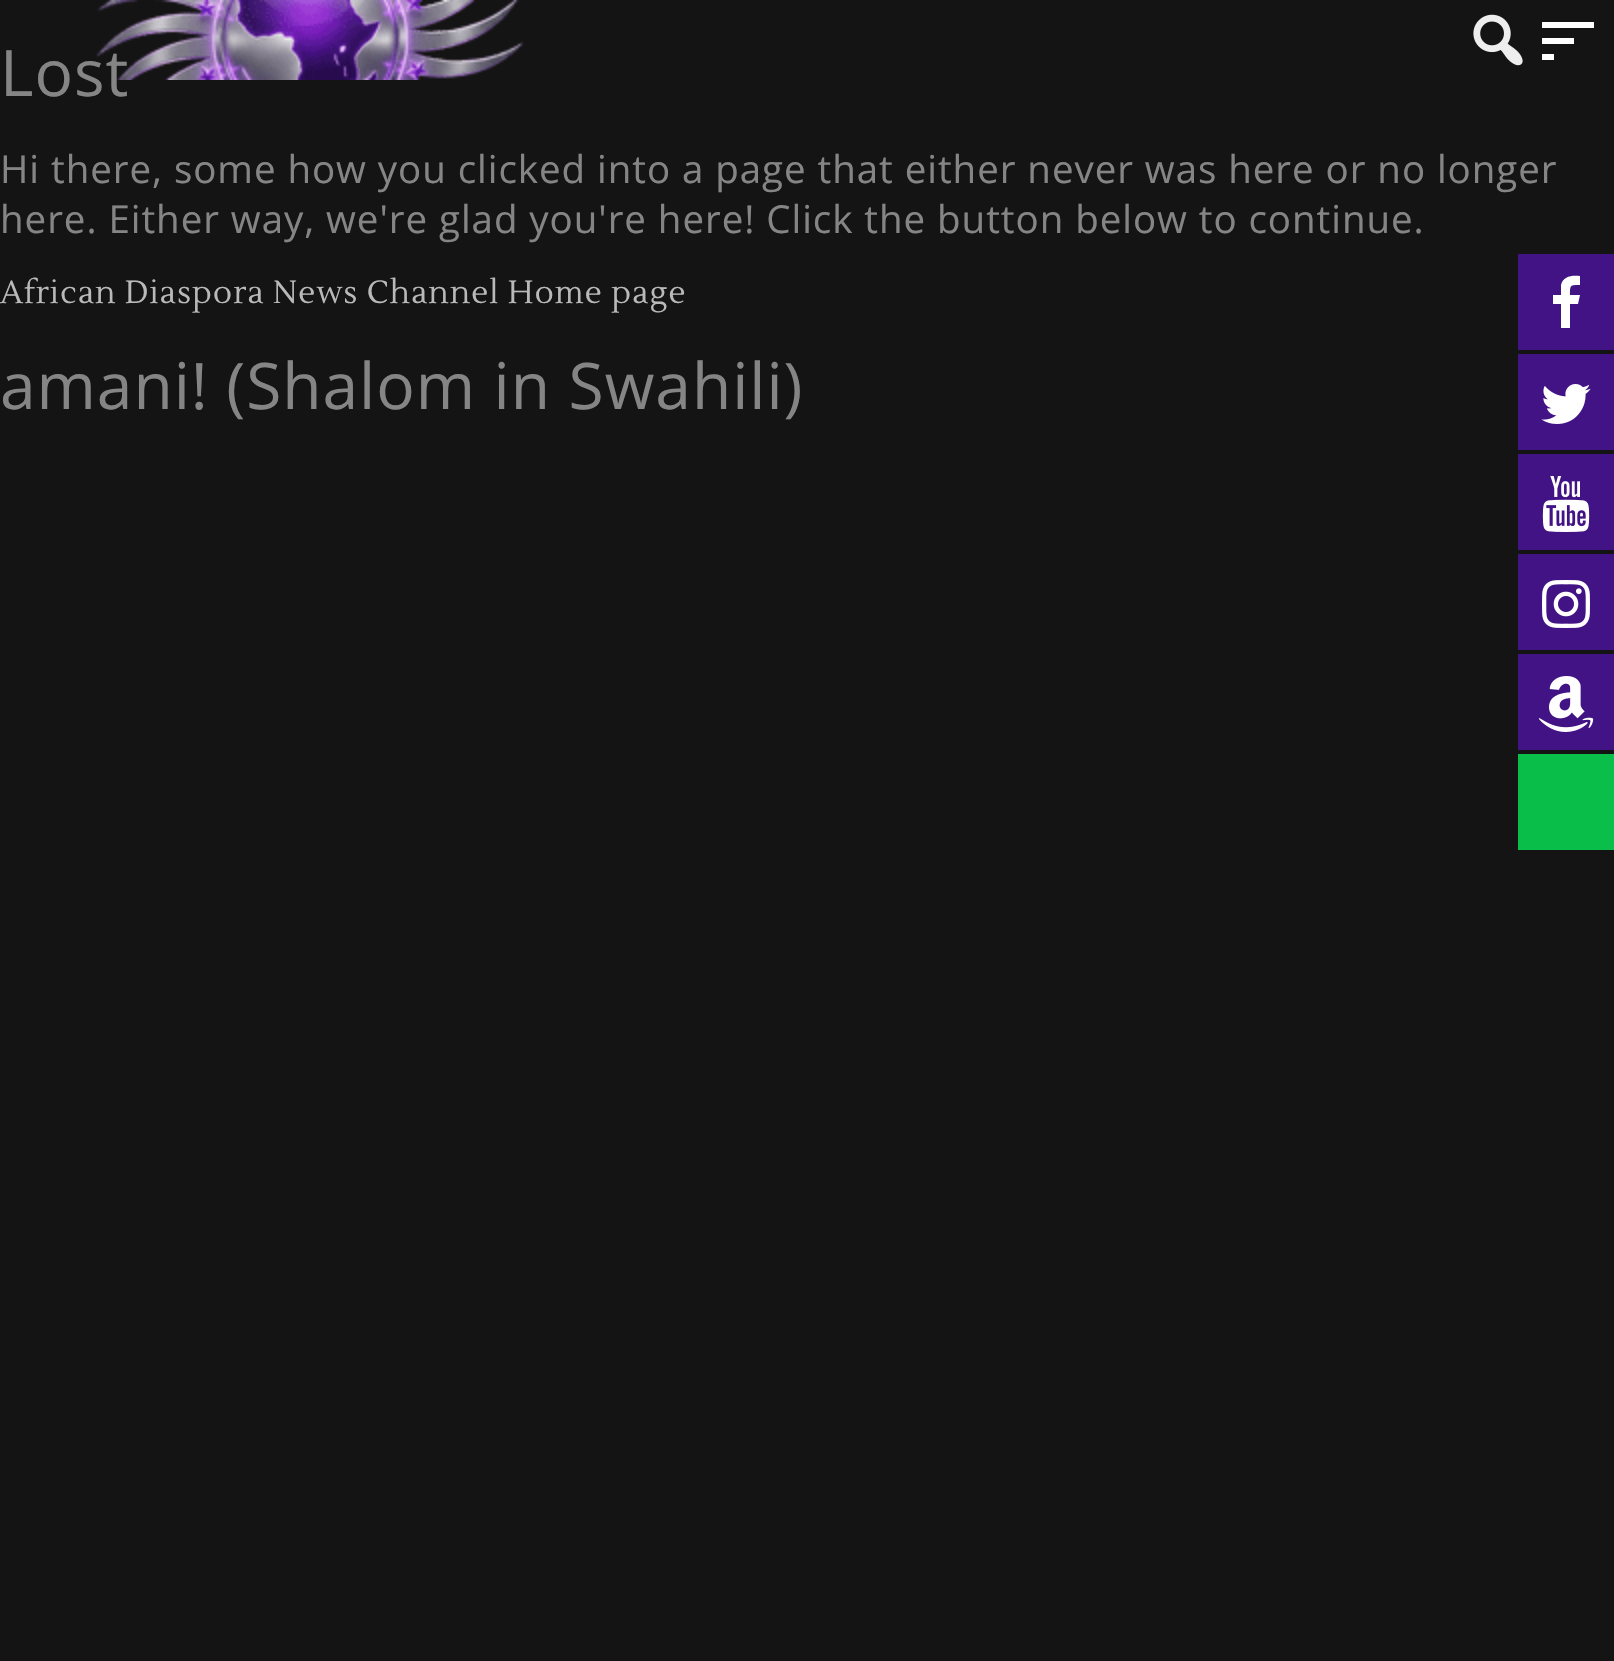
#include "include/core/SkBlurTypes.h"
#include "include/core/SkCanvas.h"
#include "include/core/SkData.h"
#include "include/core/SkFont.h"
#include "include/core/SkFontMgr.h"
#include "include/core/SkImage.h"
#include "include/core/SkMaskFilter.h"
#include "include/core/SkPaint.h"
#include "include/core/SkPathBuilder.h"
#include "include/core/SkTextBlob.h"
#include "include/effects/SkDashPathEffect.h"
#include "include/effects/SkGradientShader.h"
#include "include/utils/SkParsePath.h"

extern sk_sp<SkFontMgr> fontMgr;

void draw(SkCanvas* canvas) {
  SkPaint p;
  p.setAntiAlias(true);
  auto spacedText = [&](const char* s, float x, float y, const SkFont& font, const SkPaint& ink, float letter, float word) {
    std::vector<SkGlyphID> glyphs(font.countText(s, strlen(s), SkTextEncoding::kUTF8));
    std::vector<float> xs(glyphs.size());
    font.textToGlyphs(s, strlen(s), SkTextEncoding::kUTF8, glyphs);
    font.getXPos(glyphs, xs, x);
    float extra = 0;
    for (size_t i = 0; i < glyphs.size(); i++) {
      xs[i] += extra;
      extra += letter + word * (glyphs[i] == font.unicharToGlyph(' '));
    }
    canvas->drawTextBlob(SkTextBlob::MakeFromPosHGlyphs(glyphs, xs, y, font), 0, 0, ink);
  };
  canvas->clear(SkColorSetRGB(20, 20, 20));
  canvas->drawImageRect(SkImages::DeferredFromEncodedData(SkData::MakeFromFileName("images/2.png")), SkRect::MakeLTRB(1473, 14, 1523, 66), SkSamplingOptions());
  p.setColor(SK_ColorWHITE);
  canvas->drawRect(SkRect::MakeLTRB(1542, 38, 1574, 44), p);
  canvas->drawRect(SkRect::MakeLTRB(1542, 22, 1594, 28), p);
  canvas->drawRect(SkRect::MakeLTRB(1542, 54, 1554, 60), p);
  p.setColor(SkColorSetRGB(65, 19, 133));
  canvas->drawRect(SkRect::MakeLTRB(1518, 254, 1614, 350), p);
  p.setColor(SK_ColorWHITE);
  canvas->drawPath(SkPathBuilder().moveTo(1580, 276).lineTo(1580, 285).cubicTo(1570, 285, 1570, 285, 1570, 295).lineTo(1580, 295).lineTo(1578, 304).lineTo(1570, 304).lineTo(1570, 328).lineTo(1561, 328).lineTo(1561, 304).lineTo(1553, 304).lineTo(1553, 295).lineTo(1561, 295).lineTo(1561, 285).cubicTo(1563, 276, 1572, 275, 1580, 276).close().detach(), p);
  p.setColor(SkColorSetRGB(65, 19, 133));
  canvas->drawRect(SkRect::MakeLTRB(1518, 354, 1614, 450), p);
  canvas->drawImageRect(SkImages::DeferredFromEncodedData(SkData::MakeFromFileName("images/3.png")), SkRect::MakeLTRB(1541, 384, 1591, 424), SkSamplingOptions());
  canvas->drawRect(SkRect::MakeLTRB(1518, 454, 1614, 550), p);
  canvas->drawImageRect(SkImages::DeferredFromEncodedData(SkData::MakeFromFileName("images/4.png")), SkRect::MakeLTRB(1542, 476, 1590, 532), SkSamplingOptions());
  canvas->drawRect(SkRect::MakeLTRB(1518, 554, 1614, 650), p);
  canvas->drawImageRect(SkImages::DeferredFromEncodedData(SkData::MakeFromFileName("images/5.png")), SkRect::MakeLTRB(1542, 580, 1590, 628), SkSamplingOptions());
  canvas->drawRect(SkRect::MakeLTRB(1518, 654, 1614, 750), p);
  canvas->drawImageRect(SkImages::DeferredFromEncodedData(SkData::MakeFromFileName("images/6.png")), SkRect::MakeLTRB(1538, 676, 1594, 732), SkSamplingOptions());
  p.setColor(SkColorSetRGB(9, 190, 73));
  canvas->drawRect(SkRect::MakeLTRB(1518, 754, 1614, 850), p);
  SkFont font1(fontMgr->matchFamilyStyle("Open Sans", SkFontStyle::Normal()), 64.1f);
  font1.setSubpixel(true);
  p.setColor(SkColorSetRGB(133, 133, 133));
  spacedText("Lost", 0, 96, font1, p, 0.95f, 0);
  canvas->drawImageRect(SkImages::DeferredFromEncodedData(SkData::MakeFromFileName("images/1.png")), SkRect::MakeLTRB(96, 0, 524, 80), SkSamplingOptions());
  SkFont font2(fontMgr->matchFamilyStyle("Open Sans", SkFontStyle::Normal()), 38.5f);
  font2.setSubpixel(true);
  spacedText("Hi there, some how you clicked into a page that either never was here or no longer", 0, 183, font2, p, 0.95f, 0);
  spacedText("here. Either way, we're glad you're here! Click the button below to continue.", 0, 233, font2, p, 0.95f, 0);
  SkFont font3(fontMgr->matchFamilyStyle("Lustria", SkFontStyle::Normal()), 32);
  font3.setSubpixel(true);
  p.setColor(SkColorSetRGB(185, 185, 185));
  spacedText("African Diaspora News Channel Home page", 0, 303, font3, p, 0.95f, 0);
  p.setColor(SkColorSetRGB(133, 133, 133));
  spacedText("amani! (Shalom in Swahili)", 0, 409, font1, p, 0.95f, 0);
}
